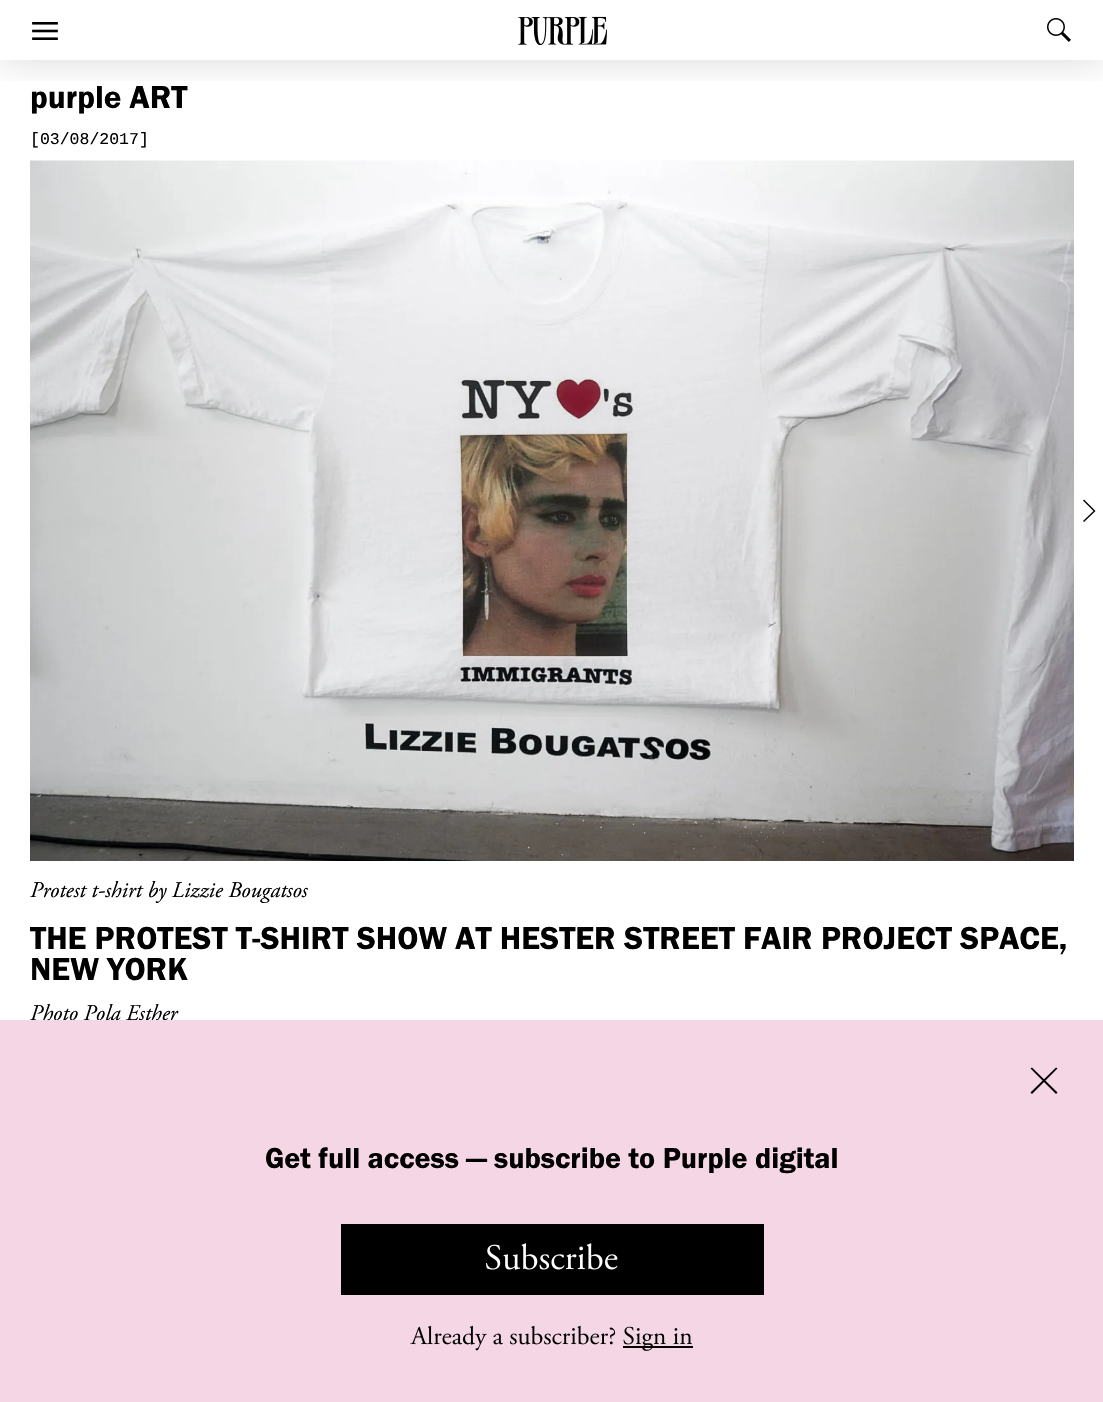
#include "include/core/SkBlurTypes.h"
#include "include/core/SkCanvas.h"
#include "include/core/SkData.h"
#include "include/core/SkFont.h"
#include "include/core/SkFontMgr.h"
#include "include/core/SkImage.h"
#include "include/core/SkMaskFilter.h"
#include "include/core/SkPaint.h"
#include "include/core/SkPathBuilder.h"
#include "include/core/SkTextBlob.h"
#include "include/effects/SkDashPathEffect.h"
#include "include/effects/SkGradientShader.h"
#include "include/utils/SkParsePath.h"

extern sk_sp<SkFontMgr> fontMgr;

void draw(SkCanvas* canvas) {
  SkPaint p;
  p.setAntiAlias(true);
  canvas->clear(SK_ColorWHITE);
  canvas->save();
  canvas->clipRect(SkRect::MakeLTRB(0, 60, 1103, 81));
  p.setColor(SkColorSetARGB(38, 0, 0, 0));
  p.setMaskFilter(SkMaskFilter::MakeBlur(kNormal_SkBlurStyle, 19));
  canvas->drawRect(SkRect::MakeLTRB(0, 0, 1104, 60), p);
  p.setMaskFilter(nullptr);
  canvas->restore();
  canvas->drawImageRect(SkImages::DeferredFromEncodedData(SkData::MakeFromFileName("images/1.png")), SkRect::MakeLTRB(1047, 18, 1071, 42), SkSamplingOptions());
  canvas->drawImageRect(SkImages::DeferredFromEncodedData(SkData::MakeFromFileName("images/2.png")), SkRect::MakeLTRB(518, 16, 607, 45), SkSamplingOptions());
  canvas->drawImageRect(SkImages::DeferredFromEncodedData(SkData::MakeFromFileName("images/3.png")), SkRect::MakeLTRB(30, 160, 1074, 861), SkSamplingOptions());
  p.setColor(SK_ColorBLACK);
  canvas->drawPath(SkPathBuilder().moveTo(1095.5f, 511).lineTo(1084, 499.5f).lineTo(1083, 500.5f).lineTo(1093.5f, 511).lineTo(1083, 521).lineTo(1084, 522).close().detach(), p);
  SkFont font1(fontMgr->matchFamilyStyle("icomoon", SkFontStyle::Normal()), 21);
  font1.setSubpixel(true);
  canvas->drawString("9", 30, 40, font1, p);
  SkFont font2(fontMgr->matchFamilyStyle("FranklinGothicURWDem", SkFontStyle::Normal()), 33);
  font2.setSubpixel(true);
  canvas->drawString("purple ART", 30, 108, font2, p);
  SkFont font3(fontMgr->matchFamilyStyle("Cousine", SkFontStyle::Normal()), 16.5f);
  font3.setSubpixel(true);
  canvas->drawString("[03/08/2017]", 30, 144, font3, p);
  SkFont font4(fontMgr->matchFamilyStyle("Adobe Garamond", SkFontStyle::Italic()), 22.5f);
  font4.setSubpixel(true);
  canvas->drawString("Protest t-shirt by Lizzie Bougatsos", 30, 897, font4, p);
  canvas->drawString("THE PROTEST T-SHIRT SHOW AT HESTER STREET FAIR PROJECT SPACE,", 30, 949, font2, p);
  canvas->drawString("NEW YORK", 30, 980, font2, p);
  canvas->drawString("Photo Pola Esther", 30, 1020, font4, p);
  p.setColor(SkColorSetRGB(244, 214, 228));
  canvas->drawRect(SkRect::MakeLTRB(0, 1020, 1103, 1402), p);
  p.setColor(SK_ColorBLACK);
  canvas->drawPath(SkPathBuilder().moveTo(1032, 1067.5f).lineTo(1057.5f, 1092.5f).lineTo(1056, 1094).lineTo(1030.5f, 1068.5f).close().detach(), p);
  canvas->drawPath(SkPathBuilder().moveTo(1030.5f, 1092.5f).lineTo(1056, 1067.5f).lineTo(1057.5f, 1068.5f).lineTo(1032, 1094).close().detach(), p);
  SkFont font5(fontMgr->matchFamilyStyle("FranklinGothicURWDem", SkFontStyle::Normal()), 30);
  font5.setSubpixel(true);
  canvas->drawString("Get full access — subscribe to Purple digital", 265, 1168, font5, p);
  canvas->drawRect(SkRect::MakeLTRB(341, 1224, 764, 1295), p);
  canvas->drawImageRect(SkImages::DeferredFromEncodedData(SkData::MakeFromFileName("images/4.png")), SkRect::MakeLTRB(486, 1243, 618, 1270), SkSamplingOptions());
  canvas->drawImageRect(SkImages::DeferredFromEncodedData(SkData::MakeFromFileName("images/5.png")), SkRect::MakeLTRB(410, 1325, 616, 1351), SkSamplingOptions());
  canvas->drawRect(SkRect::MakeLTRB(623, 1346, 693, 1348), p);
  canvas->drawImageRect(SkImages::DeferredFromEncodedData(SkData::MakeFromFileName("images/6.png")), SkRect::MakeLTRB(623, 1326, 692, 1351), SkSamplingOptions());
}
